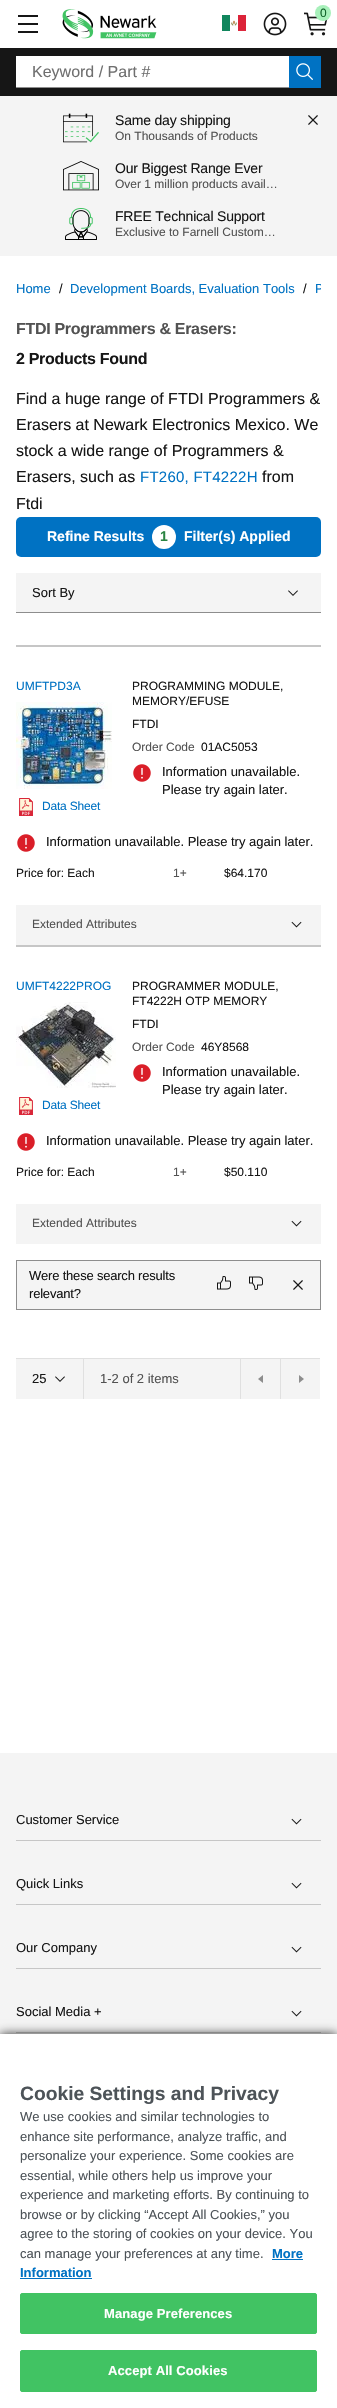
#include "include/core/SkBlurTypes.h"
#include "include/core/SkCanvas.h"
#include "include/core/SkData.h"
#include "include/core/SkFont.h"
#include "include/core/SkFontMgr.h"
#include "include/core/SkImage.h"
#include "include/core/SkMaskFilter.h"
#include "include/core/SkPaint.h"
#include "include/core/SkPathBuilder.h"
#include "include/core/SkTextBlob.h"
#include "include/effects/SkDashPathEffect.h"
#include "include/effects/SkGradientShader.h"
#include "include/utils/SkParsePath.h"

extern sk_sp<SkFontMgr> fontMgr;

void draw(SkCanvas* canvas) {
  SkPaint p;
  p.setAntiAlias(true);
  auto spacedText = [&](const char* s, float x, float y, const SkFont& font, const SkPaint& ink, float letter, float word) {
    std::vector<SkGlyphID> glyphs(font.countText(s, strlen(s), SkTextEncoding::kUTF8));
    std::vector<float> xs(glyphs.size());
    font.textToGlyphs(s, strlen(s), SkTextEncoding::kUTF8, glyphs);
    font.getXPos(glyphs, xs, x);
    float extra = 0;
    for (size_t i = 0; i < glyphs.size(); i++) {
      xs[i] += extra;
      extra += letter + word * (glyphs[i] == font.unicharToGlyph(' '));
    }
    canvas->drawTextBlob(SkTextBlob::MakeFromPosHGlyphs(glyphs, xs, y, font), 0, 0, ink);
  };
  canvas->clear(SK_ColorWHITE);
  p.setColor(SkColorSetRGB(22, 22, 22));
  canvas->drawRect(SkRect::MakeLTRB(18, 15, 38, 17), p);
  canvas->drawRect(SkRect::MakeLTRB(18, 23, 38, 25), p);
  canvas->drawRect(SkRect::MakeLTRB(18, 31, 38, 33), p);
  canvas->drawImageRect(SkImages::DeferredFromEncodedData(SkData::MakeFromFileName("images/1.png")), SkRect::MakeLTRB(62, 9, 157, 39), SkSamplingOptions());
  canvas->drawImageRect(SkImages::DeferredFromEncodedData(SkData::MakeFromFileName("images/2.png")), SkRect::MakeLTRB(222, 15, 246, 31), SkSamplingOptions());
  canvas->drawImageRect(SkImages::DeferredFromEncodedData(SkData::MakeFromFileName("images/3.png")), SkRect::MakeLTRB(263, 12, 287, 36), SkSamplingOptions());
  canvas->drawImageRect(SkImages::DeferredFromEncodedData(SkData::MakeFromFileName("images/4.png")), SkRect::MakeLTRB(304, 12, 328, 36), SkSamplingOptions());
  p.setColor(SkColorSetRGB(167, 240, 186));
  canvas->drawCircle(323, 13, 8, p);
  p.setColor(SkColorSetRGB(22, 22, 22));
  canvas->drawRect(SkRect::MakeLTRB(0, 48, 337, 96), p);
  p.setColor(SK_ColorWHITE);
  canvas->drawRect(SkRect::MakeLTRB(16, 56, 289, 87), p);
  p.setColor(SkColorSetRGB(141, 141, 141));
  canvas->drawRect(SkRect::MakeLTRB(16, 87, 289, 88), p);
  p.setColor(SkColorSetRGB(0, 114, 195));
  canvas->drawRect(SkRect::MakeLTRB(289, 56, 321, 88), p);
  canvas->drawImageRect(SkImages::DeferredFromEncodedData(SkData::MakeFromFileName("images/5.png")), SkRect::MakeLTRB(296, 63, 313, 80), SkSamplingOptions());
  p.setColor(SkColorSetRGB(244, 244, 244));
  canvas->drawRect(SkRect::MakeLTRB(0, 96, 337, 256), p);
  canvas->drawImageRect(SkImages::DeferredFromEncodedData(SkData::MakeFromFileName("images/6.png")), SkRect::MakeLTRB(63, 113, 99, 143), SkSamplingOptions());
  canvas->drawImageRect(SkImages::DeferredFromEncodedData(SkData::MakeFromFileName("images/7.png")), SkRect::MakeLTRB(63, 161, 99, 191), SkSamplingOptions());
  canvas->drawImageRect(SkImages::DeferredFromEncodedData(SkData::MakeFromFileName("images/8.png")), SkRect::MakeLTRB(65, 208, 97, 240), SkSamplingOptions());
  canvas->drawImageRect(SkImages::DeferredFromEncodedData(SkData::MakeFromFileName("images/9.png")), SkRect::MakeLTRB(308, 115, 318, 125), SkSamplingOptions());
  p.setColor(SkColorSetRGB(0, 114, 195));
  canvas->drawRoundRect(SkRect::MakeLTRB(16, 517, 321, 557), 5, 5, p);
  p.setColor(SK_ColorWHITE);
  canvas->drawCircle(164, 537, 12, p);
  p.setColor(SkColorSetRGB(244, 244, 244));
  canvas->drawRect(SkRect::MakeLTRB(16, 573, 321, 612), p);
  p.setColor(SkColorSetRGB(141, 141, 141));
  canvas->drawRect(SkRect::MakeLTRB(16, 612, 321, 613), p);
  canvas->drawImageRect(SkImages::DeferredFromEncodedData(SkData::MakeFromFileName("images/10.png")), SkRect::MakeLTRB(288, 590, 298, 596), SkSamplingOptions());
  p.setColor(SkColorSetRGB(198, 198, 198));
  canvas->drawRect(SkRect::MakeLTRB(16, 645, 321, 647), p);
  canvas->drawImageRect(SkImages::DeferredFromEncodedData(SkData::MakeFromFileName("images/11.png")), SkRect::MakeLTRB(16, 702, 112, 789), SkSamplingOptions());
  canvas->drawImageRect(SkImages::DeferredFromEncodedData(SkData::MakeFromFileName("images/12.png")), SkRect::MakeLTRB(19, 798, 33, 816), SkSamplingOptions());
  canvas->drawImageRect(SkImages::DeferredFromEncodedData(SkData::MakeFromFileName("images/13.png")), SkRect::MakeLTRB(133, 764, 151, 782), SkSamplingOptions());
  canvas->drawImageRect(SkImages::DeferredFromEncodedData(SkData::MakeFromFileName("images/13.png")), SkRect::MakeLTRB(17, 834, 35, 852), SkSamplingOptions());
  p.setColor(SkColorSetRGB(244, 244, 244));
  canvas->drawRect(SkRect::MakeLTRB(16, 905, 321, 945), p);
  canvas->drawImageRect(SkImages::DeferredFromEncodedData(SkData::MakeFromFileName("images/14.png")), SkRect::MakeLTRB(291, 921, 302, 928), SkSamplingOptions());
  p.setColor(SkColorSetRGB(198, 198, 198));
  canvas->drawRect(SkRect::MakeLTRB(16, 945, 321, 947), p);
  canvas->drawImageRect(SkImages::DeferredFromEncodedData(SkData::MakeFromFileName("images/15.png")), SkRect::MakeLTRB(16, 1002, 116, 1088), SkSamplingOptions());
  canvas->drawImageRect(SkImages::DeferredFromEncodedData(SkData::MakeFromFileName("images/12.png")), SkRect::MakeLTRB(19, 1097, 33, 1115), SkSamplingOptions());
  canvas->drawImageRect(SkImages::DeferredFromEncodedData(SkData::MakeFromFileName("images/13.png")), SkRect::MakeLTRB(133, 1064, 151, 1082), SkSamplingOptions());
  canvas->drawImageRect(SkImages::DeferredFromEncodedData(SkData::MakeFromFileName("images/13.png")), SkRect::MakeLTRB(17, 1133, 35, 1151), SkSamplingOptions());
  p.setColor(SkColorSetRGB(244, 244, 244));
  canvas->drawRect(SkRect::MakeLTRB(16, 1204, 321, 1244), p);
  canvas->drawImageRect(SkImages::DeferredFromEncodedData(SkData::MakeFromFileName("images/14.png")), SkRect::MakeLTRB(291, 1220, 302, 1227), SkSamplingOptions());
  canvas->drawRect(SkRect::MakeLTRB(16.5f, 1260.5f, 320.5f, 1309.5f), p);
  p.setStyle(SkPaint::kStroke_Style);
  p.setStrokeWidth(1);
  p.setColor(SkColorSetRGB(141, 141, 141));
  canvas->drawRect(SkRect::MakeLTRB(16.5f, 1260.5f, 320.5f, 1309.5f), p);
  canvas->drawImageRect(SkImages::DeferredFromEncodedData(SkData::MakeFromFileName("images/16.png")), SkRect::MakeLTRB(217, 1276, 231, 1290), SkSamplingOptions());
  canvas->drawImageRect(SkImages::DeferredFromEncodedData(SkData::MakeFromFileName("images/17.png")), SkRect::MakeLTRB(249, 1276, 263, 1290), SkSamplingOptions());
  canvas->drawImageRect(SkImages::DeferredFromEncodedData(SkData::MakeFromFileName("images/9.png")), SkRect::MakeLTRB(293, 1280, 303, 1290), SkSamplingOptions());
  p.setStyle(SkPaint::kFill_Style);
  p.setColor(SkColorSetRGB(244, 244, 244));
  canvas->drawRect(SkRect::MakeLTRB(16, 1359, 320, 1399), p);
  p.setColor(SkColorSetRGB(224, 224, 224));
  canvas->drawRect(SkRect::MakeLTRB(16, 1358, 320, 1359), p);
  canvas->drawRect(SkRect::MakeLTRB(83, 1359, 84, 1399), p);
  canvas->drawImageRect(SkImages::DeferredFromEncodedData(SkData::MakeFromFileName("images/10.png")), SkRect::MakeLTRB(55, 1376, 65, 1382), SkSamplingOptions());
  canvas->drawRect(SkRect::MakeLTRB(240, 1359, 241, 1399), p);
  p.setColor(SkColorSetRGB(141, 141, 141));
  canvas->drawPath(SkPathBuilder().moveTo(263, 1383).lineTo(258, 1379).lineTo(263, 1375).close().detach(), p);
  p.setColor(SkColorSetRGB(224, 224, 224));
  canvas->drawRect(SkRect::MakeLTRB(280, 1359, 281, 1399), p);
  p.setColor(SkColorSetRGB(141, 141, 141));
  canvas->drawPath(SkPathBuilder().moveTo(299, 1375).lineTo(304, 1379).lineTo(299, 1383).close().detach(), p);
  p.setColor(SkColorSetRGB(244, 244, 244));
  canvas->drawRect(SkRect::MakeLTRB(0, 1753, 337, 2034), p);
  p.setColor(SkColorSetRGB(198, 198, 198));
  canvas->drawRect(SkRect::MakeLTRB(16, 1840, 321, 1841), p);
  canvas->drawImageRect(SkImages::DeferredFromEncodedData(SkData::MakeFromFileName("images/14.png")), SkRect::MakeLTRB(291, 1818, 302, 1825), SkSamplingOptions());
  canvas->drawRect(SkRect::MakeLTRB(16, 1904, 321, 1905), p);
  canvas->drawImageRect(SkImages::DeferredFromEncodedData(SkData::MakeFromFileName("images/14.png")), SkRect::MakeLTRB(291, 1882, 302, 1889), SkSamplingOptions());
  canvas->drawRect(SkRect::MakeLTRB(16, 1968, 321, 1969), p);
  canvas->drawImageRect(SkImages::DeferredFromEncodedData(SkData::MakeFromFileName("images/14.png")), SkRect::MakeLTRB(291, 1946, 302, 1953), SkSamplingOptions());
  canvas->drawRect(SkRect::MakeLTRB(16, 2032, 321, 2033), p);
  canvas->drawImageRect(SkImages::DeferredFromEncodedData(SkData::MakeFromFileName("images/14.png")), SkRect::MakeLTRB(291, 2010, 302, 2017), SkSamplingOptions());
  p.setColor(SkColorSetARGB(204, 0, 0, 0));
  p.setMaskFilter(SkMaskFilter::MakeBlur(kNormal_SkBlurStyle, 5));
  canvas->drawRect(SkRect::MakeLTRB(0, 2034, 337, 2408), p);
  p.setMaskFilter(nullptr);
  p.setColor(SK_ColorWHITE);
  canvas->drawRect(SkRect::MakeLTRB(0, 2034, 337, 2408), p);
  p.setColor(SkColorSetRGB(0, 114, 195));
  canvas->drawRect(SkRect::MakeLTRB(272, 2259, 303, 2260), p);
  canvas->drawRect(SkRect::MakeLTRB(20, 2278, 92, 2279), p);
  p.setColor(SkColorSetRGB(65, 195, 99));
  canvas->drawRoundRect(SkRect::MakeLTRB(20.5f, 2293.5f, 316.5f, 2333.5f), 1.5f, 1.5f, p);
  p.setStyle(SkPaint::kStroke_Style);
  canvas->drawRoundRect(SkRect::MakeLTRB(20.5f, 2293.5f, 316.5f, 2333.5f), 1.5f, 1.5f, p);
  p.setStyle(SkPaint::kFill_Style);
  canvas->drawRoundRect(SkRect::MakeLTRB(20.5f, 2350.5f, 316.5f, 2391.5f), 1.5f, 1.5f, p);
  p.setStyle(SkPaint::kStroke_Style);
  canvas->drawRoundRect(SkRect::MakeLTRB(20.5f, 2350.5f, 316.5f, 2391.5f), 1.5f, 1.5f, p);
  SkFont font1(fontMgr->matchFamilyStyle("Liberation Sans", SkFontStyle::Normal()), 12);
  font1.setSubpixel(true);
  p.setStyle(SkPaint::kFill_Style);
  p.setColor(SkColorSetRGB(14, 96, 39));
  canvas->drawString("0", 320, 17, font1, p);
  SkFont font2(fontMgr->matchFamilyStyle("Liberation Sans", SkFontStyle::Normal()), 16);
  font2.setSubpixel(true);
  p.setColor(SkColorSetRGB(111, 111, 111));
  canvas->drawString("Keyword / Part #", 32, 77, font2, p);
  SkFont font3(fontMgr->matchFamilyStyle("Liberation Sans", SkFontStyle::Normal()), 14);
  font3.setSubpixel(true);
  p.setColor(SkColorSetRGB(22, 22, 22));
  spacedText("Same day shipping", 115, 125, font3, p, -0.2f, 0);
  p.setColor(SkColorSetRGB(82, 82, 82));
  canvas->drawString("On Thousands of Products", 115, 140, font1, p);
  p.setColor(SkColorSetRGB(22, 22, 22));
  spacedText("Our Biggest Range Ever", 115, 173, font3, p, -0.2f, 0);
  p.setColor(SkColorSetRGB(82, 82, 82));
  canvas->drawString("Over 1 million products avail…", 115, 188, font1, p);
  p.setColor(SkColorSetRGB(22, 22, 22));
  spacedText("FREE Technical Support", 115, 221, font3, p, -0.2f, 0);
  p.setColor(SkColorSetRGB(82, 82, 82));
  canvas->drawString("Exclusive to Farnell Custom…", 115, 236, font1, p);
  SkFont font4(fontMgr->matchFamilyStyle("Liberation Sans", SkFontStyle::Normal()), 13);
  font4.setSubpixel(true);
  p.setColor(SkColorSetRGB(0, 114, 195));
  canvas->drawString("Home", 16, 293, font4, p);
  p.setColor(SkColorSetRGB(22, 22, 22));
  canvas->drawString("/", 59, 293, font4, p);
  p.setColor(SkColorSetRGB(0, 114, 195));
  canvas->drawString("Development Boards, Evaluation Tools", 70, 293, font4, p);
  p.setColor(SkColorSetRGB(22, 22, 22));
  canvas->drawString("/", 303, 293, font4, p);
  canvas->save();
  canvas->clipRect(SkRect::MakeLTRB(16, 280, 321, 310));
  p.setColor(SkColorSetRGB(0, 114, 195));
  canvas->drawString("P", 315, 293, font4, p);
  canvas->restore();
  SkFont font5(fontMgr->matchFamilyStyle("Liberation Sans", SkFontStyle::Bold()), 16);
  font5.setSubpixel(true);
  p.setColor(SkColorSetRGB(82, 82, 82));
  spacedText("FTDI Programmers & Erasers:", 16, 334, font5, p, -0.3f, 0);
  p.setColor(SkColorSetRGB(22, 22, 22));
  spacedText("2 Products Found", 16, 364, font5, p, -0.3f, 0);
  canvas->drawString("Find a huge range of FTDI Programmers &", 16, 404, font2, p);
  canvas->drawString("Erasers at Newark Electronics Mexico. We", 16, 430, font2, p);
  canvas->drawString("stock a wide range of Programmers &", 16, 456, font2, p);
  canvas->drawString("Erasers, such as", 16, 482, font2, p);
  SkFont font6(fontMgr->matchFamilyStyle("Liberation Sans", SkFontStyle::Normal()), 15);
  font6.setSubpixel(true);
  p.setColor(SkColorSetRGB(0, 114, 195));
  spacedText("FT260, FT4222H", 140, 482, font6, p, 0.25f, 0);
  p.setColor(SkColorSetRGB(22, 22, 22));
  canvas->drawString("from", 262, 482, font2, p);
  canvas->drawString("Ftdi", 16, 509, font2, p);
  SkFont font7(fontMgr->matchFamilyStyle("Liberation Sans", SkFontStyle::Bold()), 14);
  font7.setSubpixel(true);
  p.setColor(SK_ColorWHITE);
  canvas->drawString("Refine Results", 47, 541, font7, p);
  p.setColor(SkColorSetRGB(42, 132, 66));
  canvas->drawString("1", 160, 541, font7, p);
  p.setColor(SK_ColorWHITE);
  canvas->drawString("Filter(s) Applied", 184, 541, font7, p);
  p.setColor(SkColorSetRGB(22, 22, 22));
  canvas->drawString("Sort By", 32, 597, font4, p);
  p.setColor(SkColorSetRGB(0, 114, 195));
  canvas->drawString("UMFTPD3A", 16, 690, font1, p);
  spacedText("Data Sheet", 42, 810, font1, p, -0.2f, 0);
  p.setColor(SkColorSetRGB(22, 22, 22));
  canvas->drawString("PROGRAMMING MODULE,", 132, 690, font1, p);
  canvas->drawString("MEMORY/EFUSE", 132, 705, font1, p);
  canvas->drawString("FTDI", 132, 728, font1, p);
  p.setColor(SkColorSetRGB(82, 82, 82));
  canvas->drawString("Order Code", 132, 751, font1, p);
  p.setColor(SkColorSetRGB(22, 22, 22));
  canvas->drawString("01AC5053", 201, 751, font1, p);
  canvas->drawString("Information unavailable.", 162, 776, font4, p);
  canvas->drawString("Please try again later.", 162, 794, font4, p);
  canvas->drawString("Information unavailable. Please try again later.", 46, 846, font4, p);
  canvas->drawString("Price for: Each", 16, 877, font1, p);
  p.setColor(SkColorSetRGB(82, 82, 82));
  canvas->drawString("1+", 173, 877, font1, p);
  p.setColor(SkColorSetRGB(22, 22, 22));
  canvas->drawString("$64.170", 224, 877, font1, p);
  p.setColor(SkColorSetRGB(82, 82, 82));
  canvas->drawString("Extended Attributes", 32, 928, font1, p);
  p.setColor(SkColorSetRGB(0, 114, 195));
  canvas->drawString("UMFT4222PROG", 16, 990, font1, p);
  spacedText("Data Sheet", 42, 1109, font1, p, -0.2f, 0);
  p.setColor(SkColorSetRGB(22, 22, 22));
  canvas->drawString("PROGRAMMER MODULE,", 132, 990, font1, p);
  canvas->drawString("FT4222H OTP MEMORY", 132, 1005, font1, p);
  canvas->drawString("FTDI", 132, 1028, font1, p);
  p.setColor(SkColorSetRGB(82, 82, 82));
  canvas->drawString("Order Code", 132, 1051, font1, p);
  p.setColor(SkColorSetRGB(22, 22, 22));
  canvas->drawString("46Y8568", 201, 1051, font1, p);
  canvas->drawString("Information unavailable.", 162, 1076, font4, p);
  canvas->drawString("Please try again later.", 162, 1094, font4, p);
  canvas->drawString("Information unavailable. Please try again later.", 46, 1145, font4, p);
  canvas->drawString("Price for: Each", 16, 1176, font1, p);
  p.setColor(SkColorSetRGB(82, 82, 82));
  canvas->drawString("1+", 173, 1176, font1, p);
  p.setColor(SkColorSetRGB(22, 22, 22));
  canvas->drawString("$50.110", 224, 1176, font1, p);
  p.setColor(SkColorSetRGB(82, 82, 82));
  canvas->drawString("Extended Attributes", 32, 1227, font1, p);
  p.setColor(SkColorSetRGB(22, 22, 22));
  spacedText("Were these search results", 29, 1280, font4, p, -0.2f, 0);
  spacedText("relevant?", 29, 1298, font4, p, -0.2f, 0);
  canvas->drawString("25", 32, 1383, font4, p);
  p.setColor(SkColorSetRGB(82, 82, 82));
  canvas->drawString("1-2 of 2 items", 100, 1383, font4, p);
  p.setColor(SkColorSetRGB(22, 22, 22));
  canvas->drawString("Customer Service", 16, 1824, font4, p);
  canvas->drawString("Quick Links", 16, 1888, font4, p);
  canvas->drawString("Our Company", 16, 1952, font4, p);
  canvas->drawString("Social Media +", 16, 2016, font4, p);
  SkFont font8(fontMgr->matchFamilyStyle("Liberation Sans", SkFontStyle::Bold()), 19.25f);
  font8.setSubpixel(true);
  p.setColor(SkColorSetRGB(77, 83, 88));
  canvas->drawString("Cookie Settings and Privacy", 20, 2100, font8, p);
  canvas->drawString("We use cookies and similar technologies to", 20, 2121, font4, p);
  canvas->drawString("enhance site performance, analyze traffic, and", 20, 2141, font4, p);
  canvas->drawString("personalize your experience. Some cookies are", 20, 2160, font4, p);
  canvas->drawString("essential, while others help us improve your", 20, 2180, font4, p);
  canvas->drawString("experience and marketing efforts. By continuing to", 20, 2199, font4, p);
  canvas->drawString("browse or by clicking “Accept All Cookies,” you", 20, 2219, font4, p);
  canvas->drawString("agree to the storing of cookies on your device. You", 20, 2238, font4, p);
  canvas->drawString("can manage your preferences at any time.", 20, 2258, font4, p);
  SkFont font9(fontMgr->matchFamilyStyle("Liberation Sans", SkFontStyle::Bold()), 13);
  font9.setSubpixel(true);
  p.setColor(SkColorSetRGB(0, 114, 195));
  canvas->drawString("More", 272, 2258, font9, p);
  canvas->drawString("Information", 20, 2277, font9, p);
  p.setColor(SK_ColorWHITE);
  spacedText("Manage Preferences", 104, 2318, font9, p, 0.1f, 0);
  spacedText("Accept All Cookies", 108, 2375, font9, p, 0.1f, 0);
}
